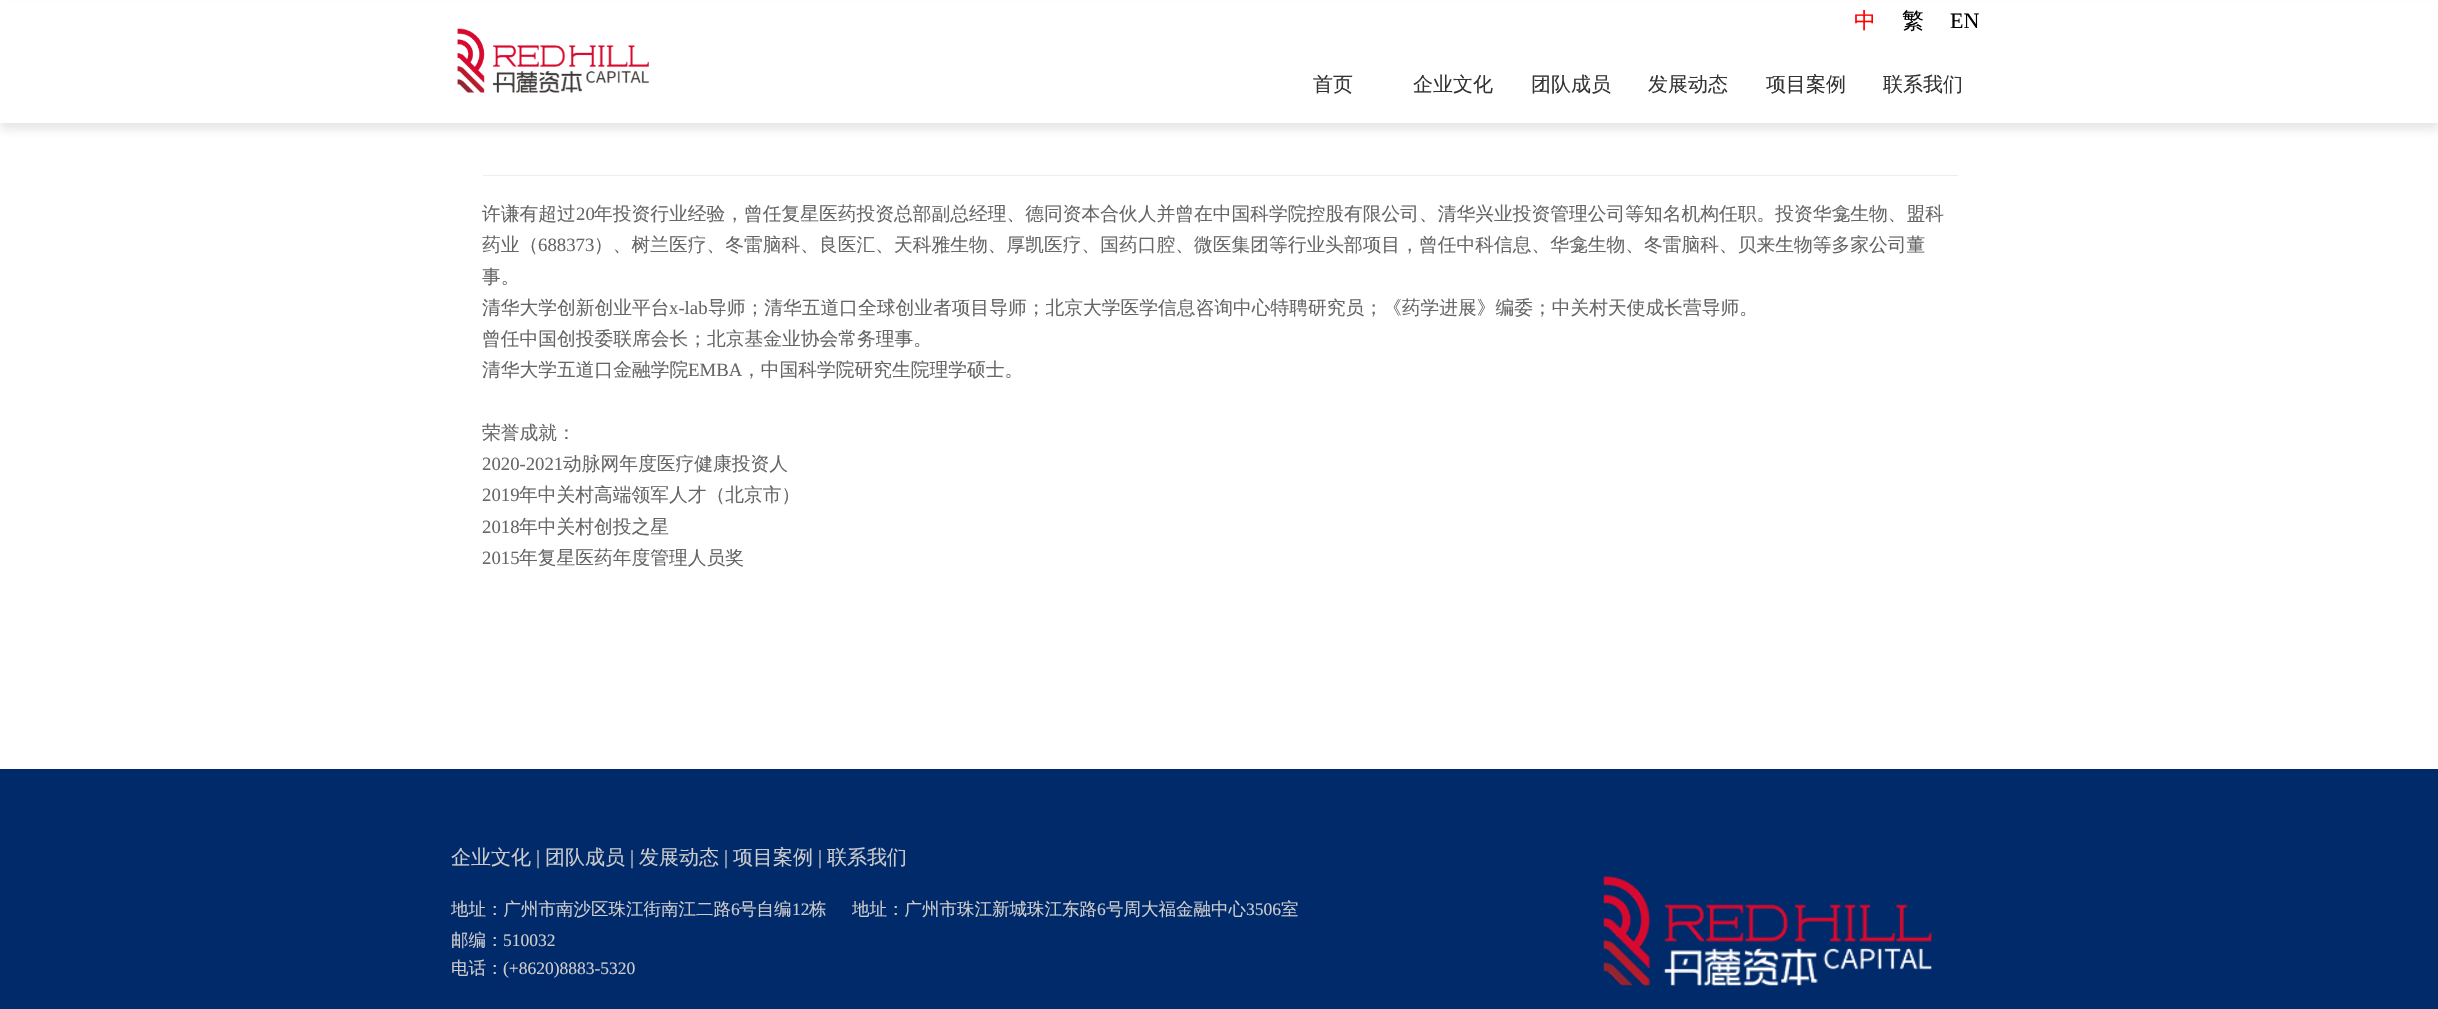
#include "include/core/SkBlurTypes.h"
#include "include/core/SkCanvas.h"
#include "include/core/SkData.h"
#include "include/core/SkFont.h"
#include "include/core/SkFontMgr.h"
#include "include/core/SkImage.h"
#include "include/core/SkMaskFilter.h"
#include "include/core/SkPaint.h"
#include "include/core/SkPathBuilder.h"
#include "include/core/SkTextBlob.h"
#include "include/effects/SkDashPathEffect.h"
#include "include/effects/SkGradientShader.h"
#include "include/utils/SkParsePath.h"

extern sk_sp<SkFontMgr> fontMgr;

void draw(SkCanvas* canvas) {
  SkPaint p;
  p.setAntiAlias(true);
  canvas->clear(SK_ColorWHITE);
  p.setColor(SkColorSetARGB(26, 22, 22, 22));
  p.setMaskFilter(SkMaskFilter::MakeBlur(kNormal_SkBlurStyle, 4.5f));
  canvas->drawRect(SkRect::MakeLTRB(0, 8, 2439, 130), p);
  p.setMaskFilter(nullptr);
  p.setColor(SK_ColorWHITE);
  canvas->drawRect(SkRect::MakeLTRB(0, 2, 2438, 123), p);
  canvas->drawImageRect(SkImages::DeferredFromEncodedData(SkData::MakeFromFileName("images/1.png")), SkRect::MakeLTRB(457, 28, 649, 93), SkSamplingOptions());
  p.setColor(SkColorSetRGB(238, 238, 238));
  canvas->drawRect(SkRect::MakeLTRB(483, 175, 1958, 176), p);
  p.setColor(SkColorSetRGB(1, 42, 106));
  canvas->drawRect(SkRect::MakeLTRB(0, 769, 2438, 1009), p);
  canvas->drawImageRect(SkImages::DeferredFromEncodedData(SkData::MakeFromFileName("images/2.png")), SkRect::MakeLTRB(1603, 876, 1932, 986), SkSamplingOptions());
  SkFont font1(fontMgr->matchFamilyStyle("WenQuanYi Zen Hei", SkFontStyle(500, SkFontStyle::kNormal_Width, SkFontStyle::kUpright_Slant)), 22);
  font1.setSubpixel(true);
  p.setColor(SkColorSetRGB(255, 0, 0));
  canvas->drawString("中", 1854, 28, font1, p);
  p.setColor(SK_ColorBLACK);
  canvas->drawString("繁", 1902, 28, font1, p);
  SkFont font2(fontMgr->matchFamilyStyle("Liberation Serif", SkFontStyle::Normal()), 22);
  font2.setSubpixel(true);
  canvas->drawString("EN", 1950, 28, font2, p);
  SkFont font3(fontMgr->matchFamilyStyle("WenQuanYi Zen Hei", SkFontStyle(500, SkFontStyle::kNormal_Width, SkFontStyle::kUpright_Slant)), 20);
  font3.setSubpixel(true);
  p.setColor(SkColorSetRGB(51, 51, 51));
  canvas->drawString("首页", 1313, 91, font3, p);
  canvas->drawString("企业文化", 1413, 91, font3, p);
  canvas->drawString("团队成员", 1531, 91, font3, p);
  canvas->drawString("发展动态", 1648, 91, font3, p);
  canvas->drawString("项目案例", 1766, 91, font3, p);
  canvas->drawString("联系我们", 1883, 91, font3, p);
  SkFont font4(fontMgr->matchFamilyStyle("WenQuanYi Zen Hei", SkFontStyle(500, SkFontStyle::kNormal_Width, SkFontStyle::kUpright_Slant)), 18.75f);
  font4.setSubpixel(true);
  p.setColor(SkColorSetRGB(102, 102, 102));
  canvas->drawString("许谦有超过", 482, 220, font4, p);
  SkFont font5(fontMgr->matchFamilyStyle("Liberation Serif", SkFontStyle::Normal()), 18.75f);
  font5.setSubpixel(true);
  canvas->drawString("20", 576, 220, font5, p);
  canvas->drawString("年投资行业经验，曾任复星医药投资总部副总经理、德同资本合伙人并曾在中国科学院控股有限公司、清华兴业投资管理公司等知名机构任职。投资华龛生物、盟科", 594, 220, font4, p);
  canvas->drawString("药业（", 482, 251, font4, p);
  canvas->drawString("688373", 538, 251, font5, p);
  canvas->drawString("）、树兰医疗、冬雷脑科、良医汇、天科雅生物、厚凯医疗、国药口腔、微医集团等行业头部项目，曾任中科信息、华龛生物、冬雷脑科、贝来生物等多家公司董", 594, 251, font4, p);
  canvas->drawString("事。", 482, 283, font4, p);
  canvas->drawString("清华大学创新创业平台", 482, 314, font4, p);
  canvas->drawString("x-lab", 669, 314, font5, p);
  canvas->drawString("导师；清华五道口全球创业者项目导师；北京大学医学信息咨询中心特聘研究员；《药学进展》编委；中关村天使成长营导师。", 708, 314, font4, p);
  canvas->drawString("曾任中国创投委联席会长；北京基金业协会常务理事。", 482, 345, font4, p);
  canvas->drawString("清华大学五道口金融学院", 482, 376, font4, p);
  canvas->drawString("EMBA", 688, 376, font5, p);
  canvas->drawString("，中国科学院研究生院理学硕士。", 742, 376, font4, p);
  canvas->drawString("荣誉成就：", 482, 439, font4, p);
  canvas->drawString("2020-2021", 482, 470, font5, p);
  canvas->drawString("动脉网年度医疗健康投资人", 563, 470, font4, p);
  canvas->drawString("2019", 482, 501, font5, p);
  canvas->drawString("年中关村高端领军人才（北京市）", 519, 501, font4, p);
  canvas->drawString("2018", 482, 533, font5, p);
  canvas->drawString("年中关村创投之星", 519, 533, font4, p);
  canvas->drawString("2015", 482, 564, font5, p);
  canvas->drawString("年复星医药年度管理人员奖", 519, 564, font4, p);
  p.setColor(SkColorSetRGB(204, 204, 204));
  canvas->drawString("企业文化", 451, 864, font3, p);
  SkFont font6(fontMgr->matchFamilyStyle("Liberation Serif", SkFontStyle::Normal()), 20);
  font6.setSubpixel(true);
  canvas->drawString("|", 536, 864, font6, p);
  canvas->drawString("团队成员", 545, 864, font3, p);
  canvas->drawString("|", 630, 864, font6, p);
  canvas->drawString("发展动态", 639, 864, font3, p);
  canvas->drawString("|", 724, 864, font6, p);
  canvas->drawString("项目案例", 733, 864, font3, p);
  canvas->drawString("|", 818, 864, font6, p);
  canvas->drawString("联系我们", 827, 864, font3, p);
  SkFont font7(fontMgr->matchFamilyStyle("WenQuanYi Zen Hei", SkFontStyle(500, SkFontStyle::kNormal_Width, SkFontStyle::kUpright_Slant)), 17.5f);
  font7.setSubpixel(true);
  canvas->drawString("地址：广州市南沙区珠江街南江二路", 451, 915, font7, p);
  SkFont font8(fontMgr->matchFamilyStyle("Liberation Serif", SkFontStyle::Normal()), 17.5f);
  font8.setSubpixel(true);
  canvas->drawString("6", 731, 915, font8, p);
  canvas->drawString("号自编", 739, 915, font7, p);
  canvas->drawString("12", 792, 915, font8, p);
  canvas->drawString("栋", 809, 915, font7, p);
  canvas->drawString("地址：广州市珠江新城珠江东路", 852, 915, font7, p);
  canvas->drawString("6", 1097, 915, font8, p);
  canvas->drawString("号周大福金融中心", 1106, 915, font7, p);
  canvas->drawString("3506", 1246, 915, font8, p);
  canvas->drawString("室", 1281, 915, font7, p);
  canvas->drawString("邮编：", 451, 946, font7, p);
  canvas->drawString("510032", 503, 946, font8, p);
  canvas->drawString("电话：", 451, 974, font7, p);
  canvas->drawString("(+8620)8883-5320", 503, 974, font8, p);
}
